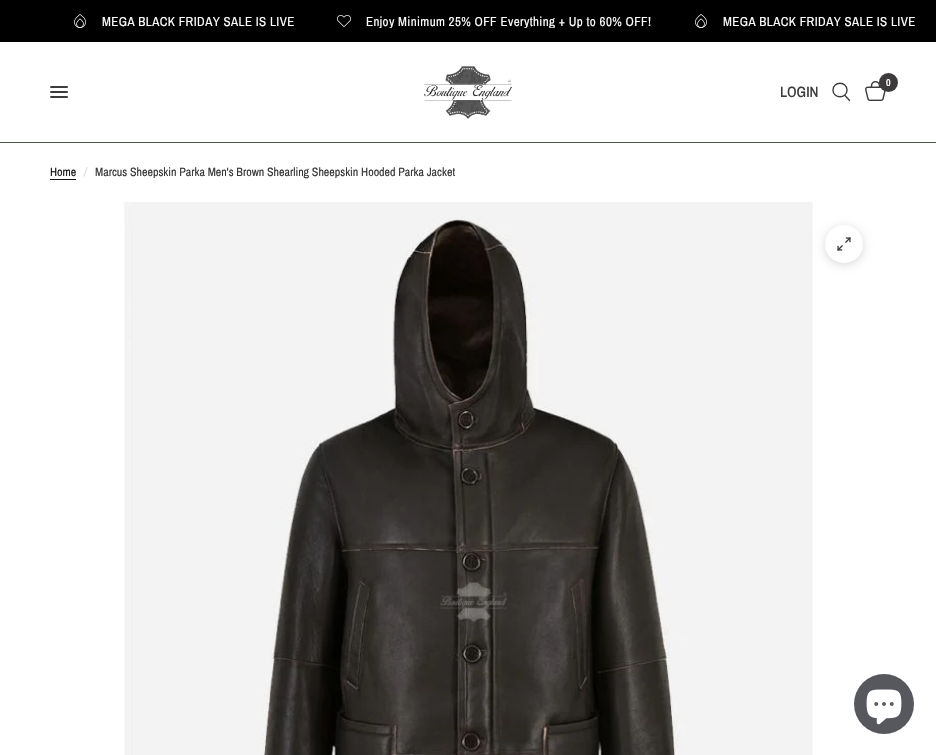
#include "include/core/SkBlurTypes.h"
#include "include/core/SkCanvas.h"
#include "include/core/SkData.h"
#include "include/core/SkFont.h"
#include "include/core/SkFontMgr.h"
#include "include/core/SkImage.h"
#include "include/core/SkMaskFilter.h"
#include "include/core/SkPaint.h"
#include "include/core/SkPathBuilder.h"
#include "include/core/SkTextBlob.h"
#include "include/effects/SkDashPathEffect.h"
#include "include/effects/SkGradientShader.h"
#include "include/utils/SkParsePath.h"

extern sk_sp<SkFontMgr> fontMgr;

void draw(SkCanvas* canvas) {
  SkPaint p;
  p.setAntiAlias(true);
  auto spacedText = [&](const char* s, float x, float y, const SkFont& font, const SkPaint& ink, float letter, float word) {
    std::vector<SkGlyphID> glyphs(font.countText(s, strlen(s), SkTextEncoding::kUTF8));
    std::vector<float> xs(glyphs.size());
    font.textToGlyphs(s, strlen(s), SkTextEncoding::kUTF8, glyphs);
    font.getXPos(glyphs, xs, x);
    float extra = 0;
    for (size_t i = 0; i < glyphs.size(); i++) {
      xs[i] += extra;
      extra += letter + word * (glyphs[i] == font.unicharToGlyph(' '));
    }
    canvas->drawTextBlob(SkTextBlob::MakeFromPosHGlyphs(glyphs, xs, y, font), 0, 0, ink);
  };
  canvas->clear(SK_ColorWHITE);
  p.setColor(SK_ColorBLACK);
  canvas->drawRect(SkRect::MakeLTRB(0, 0, 936, 42), p);
  canvas->drawImageRect(SkImages::DeferredFromEncodedData(SkData::MakeFromFileName("images/1.png")), SkRect::MakeLTRB(74, 14, 86, 28), SkSamplingOptions());
  canvas->drawImageRect(SkImages::DeferredFromEncodedData(SkData::MakeFromFileName("images/2.png")), SkRect::MakeLTRB(337, 15, 351, 27), SkSamplingOptions());
  canvas->drawImageRect(SkImages::DeferredFromEncodedData(SkData::MakeFromFileName("images/1.png")), SkRect::MakeLTRB(695, 14, 707, 28), SkSamplingOptions());
  p.setColor(SkColorSetRGB(78, 88, 74));
  canvas->drawRect(SkRect::MakeLTRB(0, 142, 936, 143), p);
  p.setColor(SkColorSetRGB(61, 59, 59));
  canvas->drawRoundRect(SkRect::MakeLTRB(50, 86, 68, 88), 1, 1, p);
  canvas->drawRoundRect(SkRect::MakeLTRB(50, 91, 68, 93), 1, 1, p);
  canvas->drawRoundRect(SkRect::MakeLTRB(50, 96, 68, 98), 1, 1, p);
  canvas->drawImageRect(SkImages::DeferredFromEncodedData(SkData::MakeFromFileName("images/3.png")), SkRect::MakeLTRB(424, 66, 513, 119), SkSamplingOptions());
  p.setStyle(SkPaint::kStroke_Style);
  p.setStrokeWidth(1.4f);
  p.setStrokeCap(SkPaint::kRound_Cap);
  p.setStrokeJoin(SkPaint::kRound_Join);
  canvas->drawPath(SkPathBuilder().moveTo(845, 95.5f).lineTo(849.5f, 100.5f).moveTo(847, 90).cubicTo(847, 99, 833, 99, 833, 90).cubicTo(833, 81, 847, 81, 847, 90).close().detach(), p);
  canvas->drawImageRect(SkImages::DeferredFromEncodedData(SkData::MakeFromFileName("images/4.png")), SkRect::MakeLTRB(865, 81, 886, 101), SkSamplingOptions());
  p.setStyle(SkPaint::kFill_Style);
  canvas->drawCircle(888.5f, 82.5f, 9.5f, p);
  p.setColor(SkColorSetRGB(21, 21, 21));
  canvas->drawRect(SkRect::MakeLTRB(50, 179, 76, 180), p);
  canvas->drawImageRect(SkImages::DeferredFromEncodedData(SkData::MakeFromFileName("images/5.png")), SkRect::MakeLTRB(124, 202, 813, 755), SkSamplingOptions());
  p.setColor(SkColorSetARGB(38, 0, 0, 0));
  p.setMaskFilter(SkMaskFilter::MakeBlur(kNormal_SkBlurStyle, 5));
  canvas->drawRoundRect(SkRect::MakeLTRB(825, 227, 863, 265), 19, 19, p);
  p.setMaskFilter(nullptr);
  p.setColor(SK_ColorWHITE);
  canvas->drawCircle(844, 244, 19, p);
  canvas->drawImageRect(SkImages::DeferredFromEncodedData(SkData::MakeFromFileName("images/6.png")), SkRect::MakeLTRB(837, 237, 851, 251), SkSamplingOptions());
  p.setColor(SkColorSetRGB(86, 88, 93));
  canvas->drawCircle(884, 704, 30, p);
  canvas->drawImageRect(SkImages::DeferredFromEncodedData(SkData::MakeFromFileName("images/7.png")), SkRect::MakeLTRB(866, 689, 902, 725), SkSamplingOptions());
  SkFont font1(fontMgr->matchFamilyStyle("Archivo Narrow", SkFontStyle::Normal()), 13);
  font1.setSubpixel(true);
  p.setColor(SK_ColorWHITE);
  spacedText("MEGA BLACK FRIDAY SALE IS LIVE", 102, 26, font1, p, 0.4f, 0);
  canvas->save();
  canvas->clipRect(SkRect::MakeLTRB(0, 14, 936, 28));
  spacedText("Enjoy Minimum 25% OFF Everything + Up to 60% OFF!", 366, 26, font1, p, 0.4f, 0);
  canvas->restore();
  spacedText("MEGA BLACK FRIDAY SALE IS LIVE", 723, 26, font1, p, 0.4f, 0);
  SkFont font2(fontMgr->matchFamilyStyle("Archivo Narrow", SkFontStyle(500, SkFontStyle::kNormal_Width, SkFontStyle::kUpright_Slant)), 15);
  font2.setSubpixel(true);
  p.setColor(SkColorSetRGB(61, 59, 59));
  canvas->drawString("LOGIN", 780, 97, font2, p);
  SkFont font3(fontMgr->matchFamilyStyle("Archivo Narrow", SkFontStyle(600, SkFontStyle::kNormal_Width, SkFontStyle::kUpright_Slant)), 10);
  font3.setSubpixel(true);
  p.setColor(SK_ColorWHITE);
  canvas->drawString("0", 886, 86, font3, p);
  SkFont font4(fontMgr->matchFamilyStyle("Archivo Narrow", SkFontStyle::Normal()), 12);
  font4.setSubpixel(true);
  p.setColor(SkColorSetRGB(21, 21, 21));
  canvas->drawString("Home", 50, 176, font4, p);
  SkFont font5(fontMgr->matchFamilyStyle("Archivo Narrow", SkFontStyle::Italic()), 12);
  font5.setSubpixel(true);
  p.setColor(SkColorSetRGB(215, 215, 215));
  canvas->drawString("/", 84, 176, font5, p);
  p.setColor(SkColorSetRGB(54, 54, 54));
  canvas->drawString("Marcus Sheepskin Parka Men's Brown Shearling Sheepskin Hooded Parka Jacket", 95, 176, font4, p);
}
